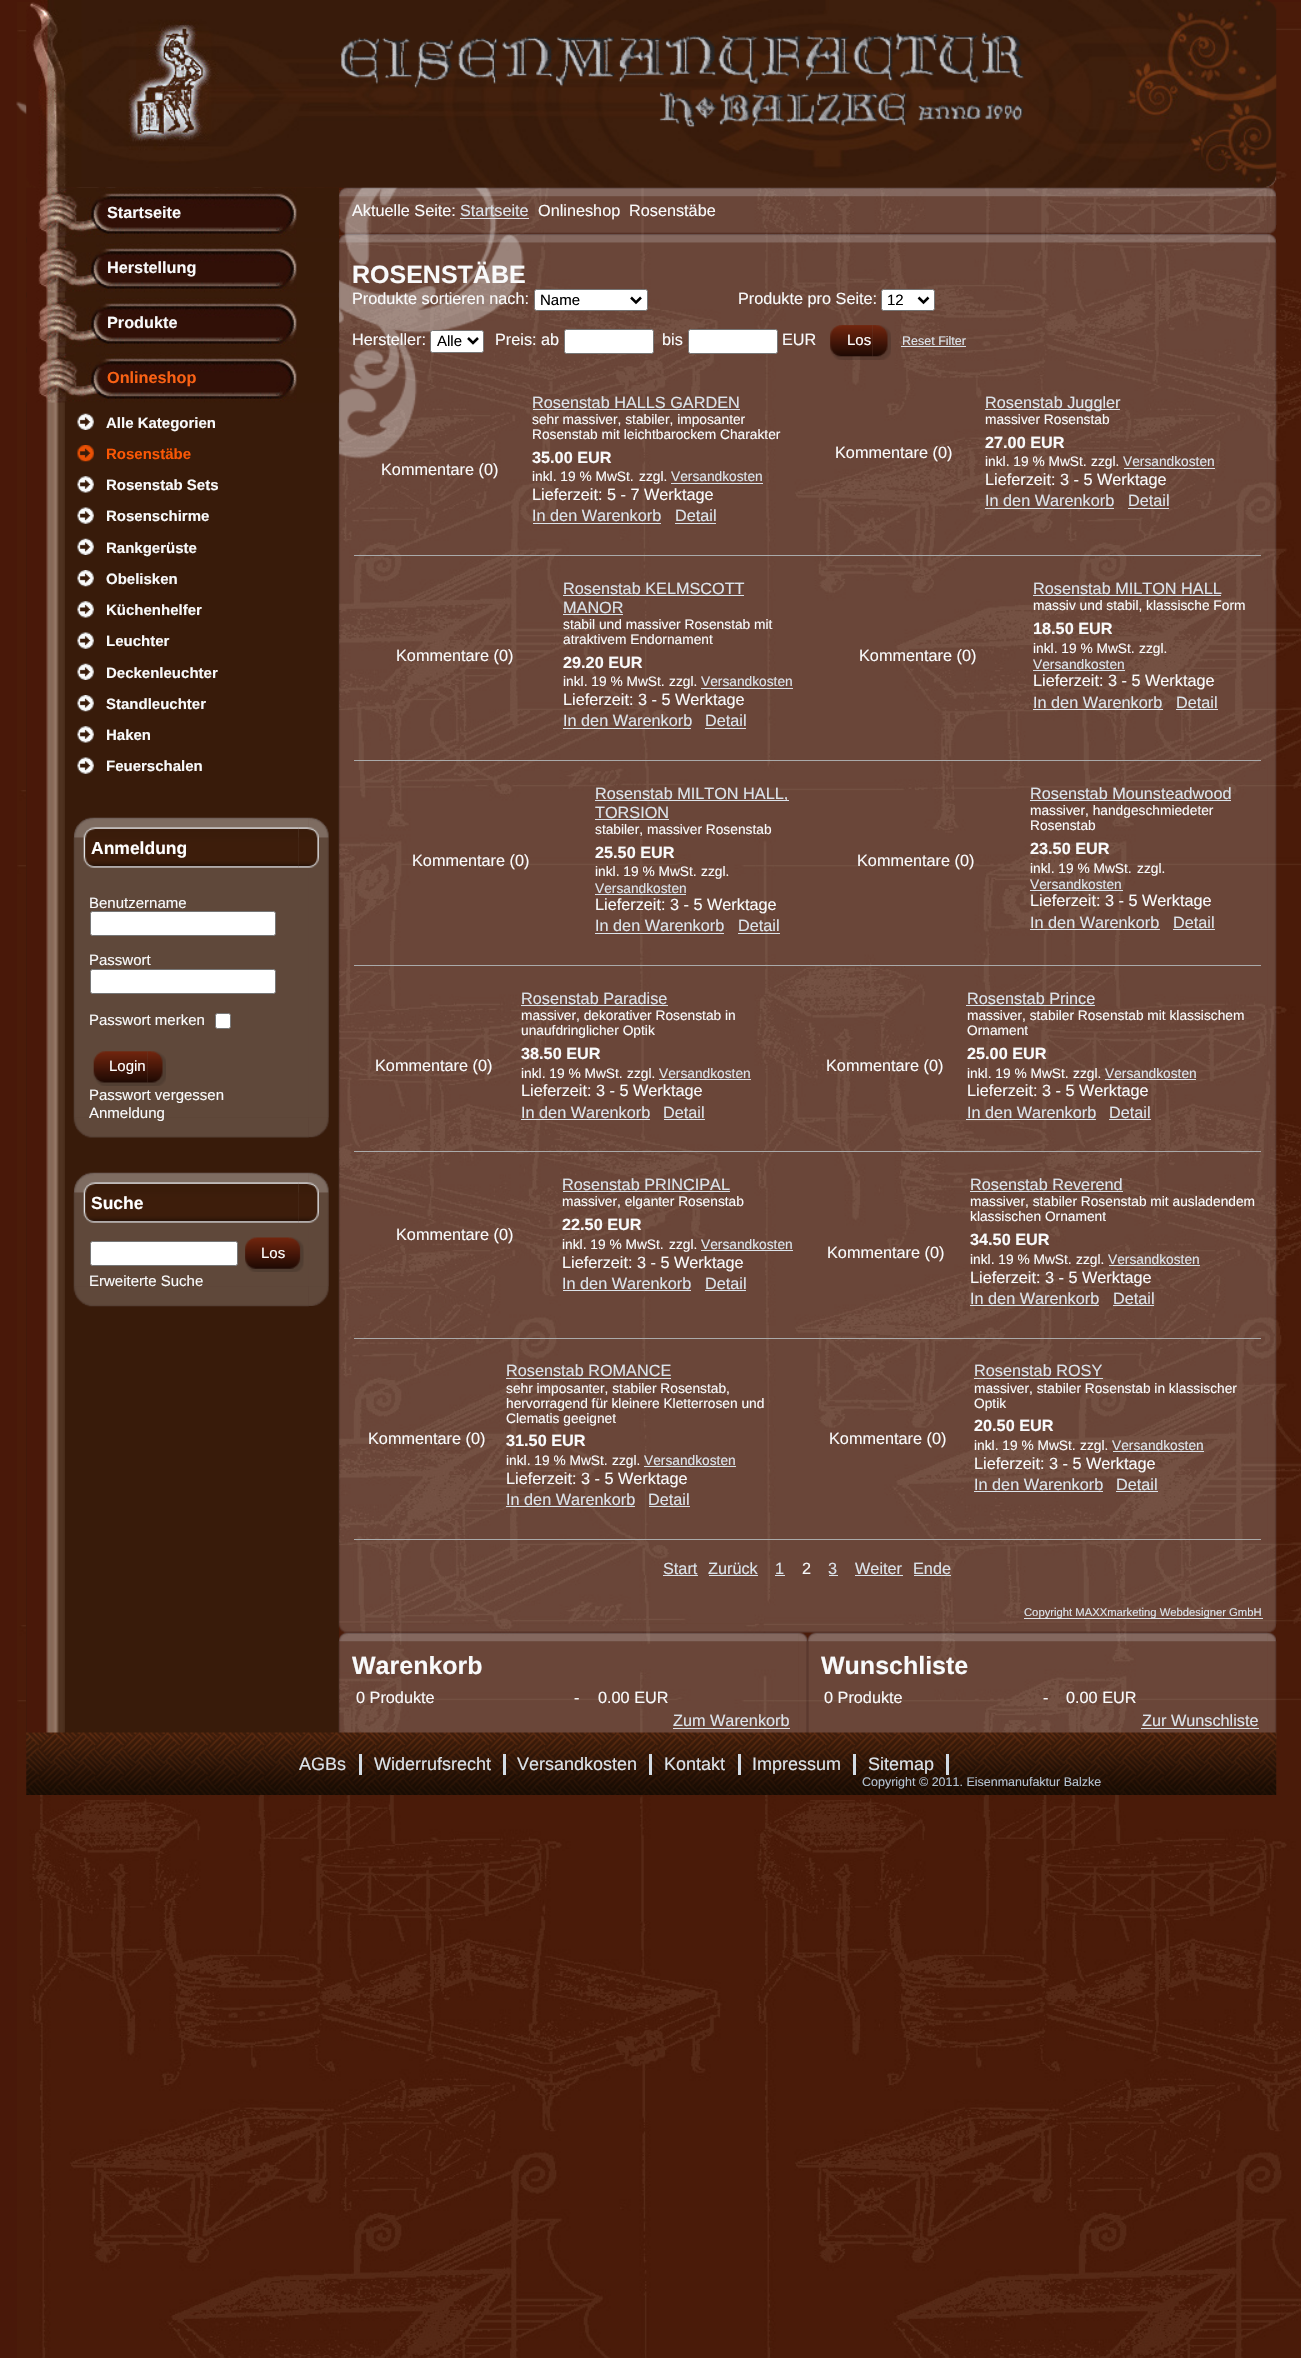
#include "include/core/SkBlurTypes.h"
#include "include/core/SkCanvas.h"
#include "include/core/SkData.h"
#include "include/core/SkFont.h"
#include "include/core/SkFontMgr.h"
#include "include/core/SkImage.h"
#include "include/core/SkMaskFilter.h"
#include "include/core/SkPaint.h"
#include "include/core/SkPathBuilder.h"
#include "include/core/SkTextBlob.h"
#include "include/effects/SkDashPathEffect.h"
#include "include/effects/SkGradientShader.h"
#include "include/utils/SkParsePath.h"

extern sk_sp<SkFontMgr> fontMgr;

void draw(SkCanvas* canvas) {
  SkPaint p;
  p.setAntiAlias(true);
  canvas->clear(SkColorSetRGB(73, 24, 9));
  canvas->drawImageRect(SkImages::DeferredFromEncodedData(SkData::MakeFromFileName("images/1.png")), SkRect::MakeLTRB(17, 2, 1301, 2358), SkSamplingOptions());
  canvas->drawImageRect(SkImages::DeferredFromEncodedData(SkData::MakeFromFileName("images/2.png")), SkRect::MakeLTRB(16, 101, 524, 459), SkSamplingOptions());
  canvas->drawImageRect(SkImages::DeferredFromEncodedData(SkData::MakeFromFileName("images/3.png")), SkRect::MakeLTRB(26, 0, 1277, 188), SkSamplingOptions());
  canvas->drawImageRect(SkImages::DeferredFromEncodedData(SkData::MakeFromFileName("images/4.png")), SkRect::MakeLTRB(38, 0, 1264, 188), SkSamplingOptions());
  canvas->drawImageRect(SkImages::DeferredFromEncodedData(SkData::MakeFromFileName("images/5.png")), SkRect::MakeLTRB(340, 32, 1024, 128), SkSamplingOptions());
  p.setColor(SkColorSetRGB(56, 27, 10));
  canvas->drawRect(SkRect::MakeLTRB(26, 188, 339, 1748), p);
  canvas->drawImageRect(SkImages::DeferredFromEncodedData(SkData::MakeFromFileName("images/6.png")), SkRect::MakeLTRB(26, 187, 65, 1748), SkSamplingOptions());
  canvas->drawImageRect(SkImages::DeferredFromEncodedData(SkData::MakeFromFileName("images/33.png")), SkRect::MakeLTRB(338, 187, 1268, 234), SkSamplingOptions());
  canvas->drawImageRect(SkImages::DeferredFromEncodedData(SkData::MakeFromFileName("images/34.png")), SkRect::MakeLTRB(339, 187, 1268, 197), SkSamplingOptions());
  canvas->drawImageRect(SkImages::DeferredFromEncodedData(SkData::MakeFromFileName("images/37.png")), SkRect::MakeLTRB(338, 196, 1268, 225), SkSamplingOptions());
  canvas->drawImageRect(SkImages::DeferredFromEncodedData(SkData::MakeFromFileName("images/39.png")), SkRect::MakeLTRB(338, 234, 1268, 1633), SkSamplingOptions());
  canvas->drawImageRect(SkImages::DeferredFromEncodedData(SkData::MakeFromFileName("images/7.png")), SkRect::MakeLTRB(26, 187, 339, 238), SkSamplingOptions());
  canvas->drawImageRect(SkImages::DeferredFromEncodedData(SkData::MakeFromFileName("images/40.png")), SkRect::MakeLTRB(339, 234, 1268, 243), SkSamplingOptions());
  canvas->drawImageRect(SkImages::DeferredFromEncodedData(SkData::MakeFromFileName("images/43.png")), SkRect::MakeLTRB(338, 242, 1268, 1624), SkSamplingOptions());
  canvas->drawImageRect(SkImages::DeferredFromEncodedData(SkData::MakeFromFileName("images/8.png")), SkRect::MakeLTRB(26, 242, 339, 293), SkSamplingOptions());
  canvas->drawImageRect(SkImages::DeferredFromEncodedData(SkData::MakeFromFileName("images/9.png")), SkRect::MakeLTRB(26, 297, 339, 348), SkSamplingOptions());
  canvas->drawImageRect(SkImages::DeferredFromEncodedData(SkData::MakeFromFileName("images/9.png")), SkRect::MakeLTRB(26, 352, 339, 403), SkSamplingOptions());
  canvas->drawImageRect(SkImages::DeferredFromEncodedData(SkData::MakeFromFileName("images/10.png")), SkRect::MakeLTRB(77, 413, 94, 430), SkSamplingOptions());
  canvas->drawImageRect(SkImages::DeferredFromEncodedData(SkData::MakeFromFileName("images/11.png")), SkRect::MakeLTRB(77, 445, 94, 462), SkSamplingOptions());
  canvas->drawImageRect(SkImages::DeferredFromEncodedData(SkData::MakeFromFileName("images/12.png")), SkRect::MakeLTRB(77, 476, 94, 493), SkSamplingOptions());
  canvas->drawImageRect(SkImages::DeferredFromEncodedData(SkData::MakeFromFileName("images/13.png")), SkRect::MakeLTRB(77, 507, 94, 524), SkSamplingOptions());
  canvas->drawImageRect(SkImages::DeferredFromEncodedData(SkData::MakeFromFileName("images/10.png")), SkRect::MakeLTRB(77, 538, 94, 555), SkSamplingOptions());
  canvas->drawImageRect(SkImages::DeferredFromEncodedData(SkData::MakeFromFileName("images/14.png")), SkRect::MakeLTRB(77, 570, 94, 587), SkSamplingOptions());
  canvas->drawImageRect(SkImages::DeferredFromEncodedData(SkData::MakeFromFileName("images/12.png")), SkRect::MakeLTRB(77, 601, 94, 618), SkSamplingOptions());
  canvas->drawImageRect(SkImages::DeferredFromEncodedData(SkData::MakeFromFileName("images/13.png")), SkRect::MakeLTRB(77, 632, 94, 649), SkSamplingOptions());
  canvas->drawImageRect(SkImages::DeferredFromEncodedData(SkData::MakeFromFileName("images/10.png")), SkRect::MakeLTRB(77, 663, 94, 680), SkSamplingOptions());
  canvas->drawImageRect(SkImages::DeferredFromEncodedData(SkData::MakeFromFileName("images/14.png")), SkRect::MakeLTRB(77, 695, 94, 712), SkSamplingOptions());
  canvas->drawImageRect(SkImages::DeferredFromEncodedData(SkData::MakeFromFileName("images/12.png")), SkRect::MakeLTRB(77, 726, 94, 743), SkSamplingOptions());
  canvas->drawImageRect(SkImages::DeferredFromEncodedData(SkData::MakeFromFileName("images/13.png")), SkRect::MakeLTRB(77, 757, 94, 774), SkSamplingOptions());
  canvas->drawImageRect(SkImages::DeferredFromEncodedData(SkData::MakeFromFileName("images/15.png")), SkRect::MakeLTRB(73, 817, 309, 1138), SkSamplingOptions());
  canvas->drawImageRect(SkImages::DeferredFromEncodedData(SkData::MakeFromFileName("images/16.png")), SkRect::MakeLTRB(74, 817, 309, 838), SkSamplingOptions());
  canvas->drawImageRect(SkImages::DeferredFromEncodedData(SkData::MakeFromFileName("images/19.png")), SkRect::MakeLTRB(73, 837, 309, 1118), SkSamplingOptions());
  canvas->drawImageRect(SkImages::DeferredFromEncodedData(SkData::MakeFromFileName("images/20.png")), SkRect::MakeLTRB(308, 837, 329, 1118), SkSamplingOptions());
  canvas->drawImageRect(SkImages::DeferredFromEncodedData(SkData::MakeFromFileName("images/17.png")), SkRect::MakeLTRB(308, 817, 329, 1138), SkSamplingOptions());
  canvas->drawImageRect(SkImages::DeferredFromEncodedData(SkData::MakeFromFileName("images/18.png")), SkRect::MakeLTRB(308, 817, 329, 838), SkSamplingOptions());
  canvas->drawImageRect(SkImages::DeferredFromEncodedData(SkData::MakeFromFileName("images/21.png")), SkRect::MakeLTRB(83, 827, 299, 868), SkSamplingOptions());
  canvas->drawImageRect(SkImages::DeferredFromEncodedData(SkData::MakeFromFileName("images/22.png")), SkRect::MakeLTRB(298, 827, 319, 868), SkSamplingOptions());
  p.setColor(SK_ColorWHITE);
  canvas->drawRoundRect(SkRect::MakeLTRB(90.5f, 911.5f, 275.5f, 935.5f), 2, 2, p);
  p.setStyle(SkPaint::kStroke_Style);
  p.setStrokeWidth(1);
  p.setColor(SkColorSetRGB(118, 118, 118));
  canvas->drawRoundRect(SkRect::MakeLTRB(90.5f, 911.5f, 275.5f, 935.5f), 2, 2, p);
  p.setStyle(SkPaint::kFill_Style);
  p.setColor(SK_ColorWHITE);
  canvas->drawRoundRect(SkRect::MakeLTRB(90.5f, 969.5f, 275.5f, 993.5f), 2, 2, p);
  p.setStyle(SkPaint::kStroke_Style);
  p.setColor(SkColorSetRGB(118, 118, 118));
  canvas->drawRoundRect(SkRect::MakeLTRB(90.5f, 969.5f, 275.5f, 993.5f), 2, 2, p);
  p.setStyle(SkPaint::kFill_Style);
  p.setColor(SK_ColorWHITE);
  canvas->drawRoundRect(SkRect::MakeLTRB(215.5f, 1013.5f, 230.5f, 1028.5f), 2, 2, p);
  p.setStyle(SkPaint::kStroke_Style);
  p.setColor(SkColorSetRGB(118, 118, 118));
  canvas->drawRoundRect(SkRect::MakeLTRB(215.5f, 1013.5f, 230.5f, 1028.5f), 2, 2, p);
  canvas->drawImageRect(SkImages::DeferredFromEncodedData(SkData::MakeFromFileName("images/23.png")), SkRect::MakeLTRB(93, 1051, 148, 1086), SkSamplingOptions());
  canvas->drawImageRect(SkImages::DeferredFromEncodedData(SkData::MakeFromFileName("images/24.png")), SkRect::MakeLTRB(147, 1051, 166, 1086), SkSamplingOptions());
  canvas->drawImageRect(SkImages::DeferredFromEncodedData(SkData::MakeFromFileName("images/25.png")), SkRect::MakeLTRB(73, 1172, 309, 1307), SkSamplingOptions());
  canvas->drawImageRect(SkImages::DeferredFromEncodedData(SkData::MakeFromFileName("images/26.png")), SkRect::MakeLTRB(74, 1172, 309, 1193), SkSamplingOptions());
  canvas->drawImageRect(SkImages::DeferredFromEncodedData(SkData::MakeFromFileName("images/29.png")), SkRect::MakeLTRB(73, 1192, 309, 1287), SkSamplingOptions());
  canvas->drawImageRect(SkImages::DeferredFromEncodedData(SkData::MakeFromFileName("images/30.png")), SkRect::MakeLTRB(308, 1192, 329, 1287), SkSamplingOptions());
  canvas->drawImageRect(SkImages::DeferredFromEncodedData(SkData::MakeFromFileName("images/27.png")), SkRect::MakeLTRB(308, 1172, 329, 1306), SkSamplingOptions());
  canvas->drawImageRect(SkImages::DeferredFromEncodedData(SkData::MakeFromFileName("images/28.png")), SkRect::MakeLTRB(308, 1172, 329, 1193), SkSamplingOptions());
  canvas->drawImageRect(SkImages::DeferredFromEncodedData(SkData::MakeFromFileName("images/21.png")), SkRect::MakeLTRB(83, 1182, 299, 1223), SkSamplingOptions());
  canvas->drawImageRect(SkImages::DeferredFromEncodedData(SkData::MakeFromFileName("images/22.png")), SkRect::MakeLTRB(298, 1182, 319, 1223), SkSamplingOptions());
  p.setStyle(SkPaint::kFill_Style);
  p.setColor(SK_ColorWHITE);
  canvas->drawRoundRect(SkRect::MakeLTRB(90.5f, 1241.5f, 237.5f, 1265.5f), 2, 2, p);
  p.setStyle(SkPaint::kStroke_Style);
  p.setColor(SkColorSetRGB(118, 118, 118));
  canvas->drawRoundRect(SkRect::MakeLTRB(90.5f, 1241.5f, 237.5f, 1265.5f), 2, 2, p);
  canvas->drawImageRect(SkImages::DeferredFromEncodedData(SkData::MakeFromFileName("images/31.png")), SkRect::MakeLTRB(245, 1237, 285, 1272), SkSamplingOptions());
  canvas->drawImageRect(SkImages::DeferredFromEncodedData(SkData::MakeFromFileName("images/32.png")), SkRect::MakeLTRB(285, 1237, 304, 1272), SkSamplingOptions());
  canvas->drawImageRect(SkImages::DeferredFromEncodedData(SkData::MakeFromFileName("images/38.png")), SkRect::MakeLTRB(1267, 196, 1277, 225), SkSamplingOptions());
  canvas->drawImageRect(SkImages::DeferredFromEncodedData(SkData::MakeFromFileName("images/35.png")), SkRect::MakeLTRB(1267, 187, 1276, 234), SkSamplingOptions());
  canvas->drawImageRect(SkImages::DeferredFromEncodedData(SkData::MakeFromFileName("images/36.png")), SkRect::MakeLTRB(1267, 187, 1276, 197), SkSamplingOptions());
  p.setStyle(SkPaint::kFill_Style);
  p.setColor(SkColorSetRGB(220, 227, 234));
  canvas->drawRect(SkRect::MakeLTRB(460, 218, 529, 219), p);
  canvas->drawImageRect(SkImages::DeferredFromEncodedData(SkData::MakeFromFileName("images/44.png")), SkRect::MakeLTRB(1267, 242, 1277, 1624), SkSamplingOptions());
  canvas->drawImageRect(SkImages::DeferredFromEncodedData(SkData::MakeFromFileName("images/41.png")), SkRect::MakeLTRB(1267, 234, 1276, 1633), SkSamplingOptions());
  canvas->drawImageRect(SkImages::DeferredFromEncodedData(SkData::MakeFromFileName("images/42.png")), SkRect::MakeLTRB(1267, 234, 1276, 243), SkSamplingOptions());
  p.setColor(SK_ColorWHITE);
  canvas->drawRoundRect(SkRect::MakeLTRB(534.5f, 289.5f, 647.5f, 310.5f), 2, 2, p);
  p.setStyle(SkPaint::kStroke_Style);
  p.setColor(SkColorSetRGB(118, 118, 118));
  canvas->drawRoundRect(SkRect::MakeLTRB(534.5f, 289.5f, 647.5f, 310.5f), 2, 2, p);
  p.setStrokeWidth(2.5f);
  p.setColor(SK_ColorBLACK);
  canvas->drawPath(SkPathBuilder().moveTo(631, 297.5f).lineTo(636, 302.5f).lineTo(641, 297.5f).detach(), p);
  p.setStyle(SkPaint::kFill_Style);
  p.setColor(SK_ColorWHITE);
  canvas->drawRoundRect(SkRect::MakeLTRB(881.5f, 289.5f, 934.5f, 310.5f), 2, 2, p);
  p.setStyle(SkPaint::kStroke_Style);
  p.setStrokeWidth(1);
  p.setColor(SkColorSetRGB(118, 118, 118));
  canvas->drawRoundRect(SkRect::MakeLTRB(881.5f, 289.5f, 934.5f, 310.5f), 2, 2, p);
  p.setStrokeWidth(2.5f);
  p.setColor(SK_ColorBLACK);
  canvas->drawPath(SkPathBuilder().moveTo(918.5f, 297.5f).lineTo(923.5f, 302.5f).lineTo(928.5f, 297.5f).detach(), p);
  p.setStyle(SkPaint::kFill_Style);
  p.setColor(SK_ColorWHITE);
  canvas->drawRoundRect(SkRect::MakeLTRB(430.5f, 330.5f, 483.5f, 352.5f), 2, 2, p);
  p.setStyle(SkPaint::kStroke_Style);
  p.setStrokeWidth(1);
  p.setColor(SkColorSetRGB(118, 118, 118));
  canvas->drawRoundRect(SkRect::MakeLTRB(430.5f, 330.5f, 483.5f, 352.5f), 2, 2, p);
  p.setStrokeWidth(2.5f);
  p.setColor(SK_ColorBLACK);
  canvas->drawPath(SkPathBuilder().moveTo(468, 338).lineTo(473, 343).lineTo(478, 338).detach(), p);
  p.setStyle(SkPaint::kFill_Style);
  p.setColor(SK_ColorWHITE);
  canvas->drawRoundRect(SkRect::MakeLTRB(564.5f, 329.5f, 653.5f, 353.5f), 2, 2, p);
  p.setStyle(SkPaint::kStroke_Style);
  p.setStrokeWidth(1);
  p.setColor(SkColorSetRGB(118, 118, 118));
  canvas->drawRoundRect(SkRect::MakeLTRB(564.5f, 329.5f, 653.5f, 353.5f), 2, 2, p);
  p.setStyle(SkPaint::kFill_Style);
  p.setColor(SK_ColorWHITE);
  canvas->drawRoundRect(SkRect::MakeLTRB(688.5f, 329.5f, 777.5f, 353.5f), 2, 2, p);
  p.setStyle(SkPaint::kStroke_Style);
  p.setColor(SkColorSetRGB(118, 118, 118));
  canvas->drawRoundRect(SkRect::MakeLTRB(688.5f, 329.5f, 777.5f, 353.5f), 2, 2, p);
  canvas->drawImageRect(SkImages::DeferredFromEncodedData(SkData::MakeFromFileName("images/45.png")), SkRect::MakeLTRB(830, 325, 873, 360), SkSamplingOptions());
  canvas->drawImageRect(SkImages::DeferredFromEncodedData(SkData::MakeFromFileName("images/46.png")), SkRect::MakeLTRB(872, 325, 891, 360), SkSamplingOptions());
  p.setStyle(SkPaint::kFill_Style);
  p.setColor(SkColorSetRGB(220, 227, 234));
  canvas->drawRect(SkRect::MakeLTRB(901, 346, 966, 347), p);
  canvas->drawRect(SkRect::MakeLTRB(533, 409, 740, 410), p);
  canvas->drawRect(SkRect::MakeLTRB(671, 483, 763, 484), p);
  canvas->drawRect(SkRect::MakeLTRB(533, 523, 661, 524), p);
  canvas->drawRect(SkRect::MakeLTRB(675, 523, 716, 524), p);
  canvas->drawRect(SkRect::MakeLTRB(985, 409, 1120, 410), p);
  canvas->drawRect(SkRect::MakeLTRB(1124, 468, 1215, 469), p);
  canvas->drawRect(SkRect::MakeLTRB(985, 508, 1114, 509), p);
  canvas->drawRect(SkRect::MakeLTRB(1128, 508, 1169, 509), p);
  p.setColor(SkColorSetRGB(170, 170, 170));
  canvas->drawRect(SkRect::MakeLTRB(354, 555, 1261, 556), p);
  p.setColor(SkColorSetRGB(220, 227, 234));
  canvas->drawRect(SkRect::MakeLTRB(563, 595, 744, 596), p);
  canvas->drawRect(SkRect::MakeLTRB(563, 614, 623, 615), p);
  canvas->drawRect(SkRect::MakeLTRB(701, 688, 793, 689), p);
  canvas->drawRect(SkRect::MakeLTRB(563, 728, 691, 729), p);
  canvas->drawRect(SkRect::MakeLTRB(705, 728, 746, 729), p);
  canvas->drawRect(SkRect::MakeLTRB(1033, 595, 1221, 596), p);
  canvas->drawRect(SkRect::MakeLTRB(1033, 670, 1125, 671), p);
  canvas->drawRect(SkRect::MakeLTRB(1033, 709, 1163, 710), p);
  canvas->drawRect(SkRect::MakeLTRB(1176, 709, 1218, 710), p);
  p.setColor(SkColorSetRGB(170, 170, 170));
  canvas->drawRect(SkRect::MakeLTRB(354, 760, 1261, 761), p);
  p.setColor(SkColorSetRGB(220, 227, 234));
  canvas->drawRect(SkRect::MakeLTRB(595, 800, 789, 801), p);
  canvas->drawRect(SkRect::MakeLTRB(595, 819, 669, 820), p);
  canvas->drawRect(SkRect::MakeLTRB(595, 894, 686, 895), p);
  canvas->drawRect(SkRect::MakeLTRB(595, 933, 724, 934), p);
  canvas->drawRect(SkRect::MakeLTRB(738, 933, 780, 934), p);
  canvas->drawRect(SkRect::MakeLTRB(1030, 800, 1231, 801), p);
  canvas->drawRect(SkRect::MakeLTRB(1030, 890, 1123, 891), p);
  canvas->drawRect(SkRect::MakeLTRB(1030, 929, 1160, 930), p);
  canvas->drawRect(SkRect::MakeLTRB(1173, 929, 1215, 930), p);
  p.setColor(SkColorSetRGB(170, 170, 170));
  canvas->drawRect(SkRect::MakeLTRB(354, 965, 1261, 966), p);
  p.setColor(SkColorSetRGB(220, 227, 234));
  canvas->drawRect(SkRect::MakeLTRB(521, 1005, 668, 1006), p);
  canvas->drawRect(SkRect::MakeLTRB(659, 1079, 751, 1080), p);
  canvas->drawRect(SkRect::MakeLTRB(521, 1119, 650, 1120), p);
  canvas->drawRect(SkRect::MakeLTRB(664, 1119, 705, 1120), p);
  canvas->drawRect(SkRect::MakeLTRB(966, 1005, 1095, 1006), p);
  canvas->drawRect(SkRect::MakeLTRB(1105, 1079, 1196, 1080), p);
  canvas->drawRect(SkRect::MakeLTRB(966, 1119, 1096, 1120), p);
  canvas->drawRect(SkRect::MakeLTRB(1109, 1119, 1151, 1120), p);
  p.setColor(SkColorSetRGB(170, 170, 170));
  canvas->drawRect(SkRect::MakeLTRB(354, 1151, 1261, 1152), p);
  p.setColor(SkColorSetRGB(220, 227, 234));
  canvas->drawRect(SkRect::MakeLTRB(563, 1191, 730, 1192), p);
  canvas->drawRect(SkRect::MakeLTRB(701, 1250, 793, 1251), p);
  canvas->drawRect(SkRect::MakeLTRB(563, 1290, 691, 1291), p);
  canvas->drawRect(SkRect::MakeLTRB(705, 1290, 746, 1291), p);
  canvas->drawRect(SkRect::MakeLTRB(970, 1191, 1123, 1192), p);
  canvas->drawRect(SkRect::MakeLTRB(1109, 1265, 1200, 1266), p);
  canvas->drawRect(SkRect::MakeLTRB(970, 1305, 1099, 1306), p);
  canvas->drawRect(SkRect::MakeLTRB(1113, 1305, 1154, 1306), p);
  p.setColor(SkColorSetRGB(170, 170, 170));
  canvas->drawRect(SkRect::MakeLTRB(354, 1338, 1261, 1339), p);
  p.setColor(SkColorSetRGB(220, 227, 234));
  canvas->drawRect(SkRect::MakeLTRB(506, 1378, 671, 1379), p);
  canvas->drawRect(SkRect::MakeLTRB(644, 1466, 736, 1467), p);
  canvas->drawRect(SkRect::MakeLTRB(506, 1506, 635, 1507), p);
  canvas->drawRect(SkRect::MakeLTRB(649, 1506, 690, 1507), p);
  canvas->drawRect(SkRect::MakeLTRB(974, 1378, 1103, 1379), p);
  canvas->drawRect(SkRect::MakeLTRB(1113, 1451, 1204, 1452), p);
  canvas->drawRect(SkRect::MakeLTRB(974, 1491, 1103, 1492), p);
  canvas->drawRect(SkRect::MakeLTRB(1116, 1491, 1158, 1492), p);
  p.setColor(SkColorSetRGB(170, 170, 170));
  canvas->drawRect(SkRect::MakeLTRB(354, 1539, 1261, 1540), p);
  p.setColor(SkColorSetRGB(220, 227, 234));
  canvas->drawRect(SkRect::MakeLTRB(663, 1575, 698, 1576), p);
  canvas->drawRect(SkRect::MakeLTRB(709, 1575, 758, 1576), p);
  canvas->drawRect(SkRect::MakeLTRB(775, 1575, 785, 1576), p);
  canvas->drawRect(SkRect::MakeLTRB(829, 1575, 838, 1576), p);
  canvas->drawRect(SkRect::MakeLTRB(855, 1575, 903, 1576), p);
  canvas->drawRect(SkRect::MakeLTRB(914, 1575, 951, 1576), p);
  canvas->drawRect(SkRect::MakeLTRB(1024, 1618, 1263, 1619), p);
  canvas->drawImageRect(SkImages::DeferredFromEncodedData(SkData::MakeFromFileName("images/47.png")), SkRect::MakeLTRB(339, 1632, 799, 1642), SkSamplingOptions());
  canvas->drawImageRect(SkImages::DeferredFromEncodedData(SkData::MakeFromFileName("images/48.png")), SkRect::MakeLTRB(339, 1632, 799, 1642), SkSamplingOptions());
  canvas->drawImageRect(SkImages::DeferredFromEncodedData(SkData::MakeFromFileName("images/51.png")), SkRect::MakeLTRB(338, 1641, 799, 1733), SkSamplingOptions());
  canvas->drawImageRect(SkImages::DeferredFromEncodedData(SkData::MakeFromFileName("images/52.png")), SkRect::MakeLTRB(798, 1641, 808, 1733), SkSamplingOptions());
  canvas->drawImageRect(SkImages::DeferredFromEncodedData(SkData::MakeFromFileName("images/49.png")), SkRect::MakeLTRB(798, 1632, 808, 1642), SkSamplingOptions());
  canvas->drawImageRect(SkImages::DeferredFromEncodedData(SkData::MakeFromFileName("images/50.png")), SkRect::MakeLTRB(798, 1632, 808, 1642), SkSamplingOptions());
  canvas->drawRect(SkRect::MakeLTRB(673, 1728, 790, 1729), p);
  canvas->drawImageRect(SkImages::DeferredFromEncodedData(SkData::MakeFromFileName("images/53.png")), SkRect::MakeLTRB(807, 1632, 1268, 1642), SkSamplingOptions());
  canvas->drawImageRect(SkImages::DeferredFromEncodedData(SkData::MakeFromFileName("images/54.png")), SkRect::MakeLTRB(807, 1632, 1268, 1642), SkSamplingOptions());
  canvas->drawImageRect(SkImages::DeferredFromEncodedData(SkData::MakeFromFileName("images/57.png")), SkRect::MakeLTRB(807, 1641, 1268, 1733), SkSamplingOptions());
  canvas->drawImageRect(SkImages::DeferredFromEncodedData(SkData::MakeFromFileName("images/58.png")), SkRect::MakeLTRB(1267, 1641, 1277, 1739), SkSamplingOptions());
  canvas->drawImageRect(SkImages::DeferredFromEncodedData(SkData::MakeFromFileName("images/55.png")), SkRect::MakeLTRB(1267, 1632, 1276, 1642), SkSamplingOptions());
  canvas->drawImageRect(SkImages::DeferredFromEncodedData(SkData::MakeFromFileName("images/56.png")), SkRect::MakeLTRB(1267, 1632, 1276, 1642), SkSamplingOptions());
  canvas->drawRect(SkRect::MakeLTRB(1141, 1728, 1259, 1729), p);
  canvas->drawImageRect(SkImages::DeferredFromEncodedData(SkData::MakeFromFileName("images/59.png")), SkRect::MakeLTRB(26, 1732, 1277, 1795), SkSamplingOptions());
  p.setColor(SkColorSetRGB(210, 219, 228));
  canvas->drawRect(SkRect::MakeLTRB(359, 1754, 362, 1775), p);
  canvas->drawRect(SkRect::MakeLTRB(503, 1754, 506, 1775), p);
  canvas->drawRect(SkRect::MakeLTRB(649, 1754, 652, 1775), p);
  canvas->drawRect(SkRect::MakeLTRB(738, 1754, 741, 1775), p);
  canvas->drawRect(SkRect::MakeLTRB(853, 1754, 856, 1775), p);
  canvas->drawRect(SkRect::MakeLTRB(946, 1754, 949, 1775), p);
  SkFont font1(fontMgr->matchFamilyStyle("Liberation Sans", SkFontStyle::Bold()), 16.25f);
  font1.setSubpixel(true);
  p.setColor(SkColorSetRGB(249, 250, 251));
  canvas->drawString("Startseite", 107, 218, font1, p);
  canvas->drawString("Herstellung", 107, 273, font1, p);
  canvas->drawString("Produkte", 107, 328, font1, p);
  p.setColor(SkColorSetRGB(250, 97, 20));
  canvas->drawString("Onlineshop", 107, 383, font1, p);
  SkFont font2(fontMgr->matchFamilyStyle("Liberation Sans", SkFontStyle::Bold()), 15);
  font2.setSubpixel(true);
  p.setColor(SkColorSetRGB(249, 250, 251));
  canvas->drawString("Alle Kategorien", 106, 428, font2, p);
  p.setColor(SkColorSetRGB(250, 87, 5));
  canvas->drawString("Rosenstäbe", 106, 459, font2, p);
  p.setColor(SkColorSetRGB(249, 250, 251));
  canvas->drawString("Rosenstab Sets", 106, 490, font2, p);
  canvas->drawString("Rosenschirme", 106, 521, font2, p);
  canvas->drawString("Rankgerüste", 106, 553, font2, p);
  canvas->drawString("Obelisken", 106, 584, font2, p);
  canvas->drawString("Küchenhelfer", 106, 615, font2, p);
  canvas->drawString("Leuchter", 106, 646, font2, p);
  canvas->drawString("Deckenleuchter", 106, 678, font2, p);
  canvas->drawString("Standleuchter", 106, 709, font2, p);
  canvas->drawString("Haken", 106, 740, font2, p);
  canvas->drawString("Feuerschalen", 106, 771, font2, p);
  SkFont font3(fontMgr->matchFamilyStyle("Liberation Sans", SkFontStyle::Bold()), 17.5f);
  font3.setSubpixel(true);
  p.setColor(SK_ColorWHITE);
  canvas->drawString("Anmeldung", 91, 854, font3, p);
  SkFont font4(fontMgr->matchFamilyStyle("Liberation Sans", SkFontStyle::Normal()), 15);
  font4.setSubpixel(true);
  p.setColor(SkColorSetRGB(249, 250, 251));
  canvas->drawString("Benutzername", 89, 908, font4, p);
  canvas->drawString("Passwort", 89, 965, font4, p);
  canvas->drawString("Passwort merken", 89, 1025, font4, p);
  p.setColor(SK_ColorWHITE);
  canvas->drawString("Login", 109, 1071, font4, p);
  p.setColor(SkColorSetRGB(249, 250, 251));
  canvas->drawString("Passwort vergessen", 89, 1100, font4, p);
  canvas->drawString("Anmeldung", 89, 1118, font4, p);
  p.setColor(SK_ColorWHITE);
  canvas->drawString("Suche", 91, 1209, font3, p);
  canvas->drawString("Los", 261, 1258, font4, p);
  p.setColor(SkColorSetRGB(249, 250, 251));
  canvas->drawString("Erweiterte Suche", 89, 1286, font4, p);
  SkFont font5(fontMgr->matchFamilyStyle("Liberation Sans", SkFontStyle::Normal()), 16.25f);
  font5.setSubpixel(true);
  canvas->drawString("Aktuelle Seite:", 352, 216, font5, p);
  p.setColor(SkColorSetRGB(220, 227, 234));
  canvas->drawString("Startseite", 460, 216, font5, p);
  p.setColor(SkColorSetRGB(249, 250, 251));
  canvas->drawString("Onlineshop", 538, 216, font5, p);
  canvas->drawString("Rosenstäbe", 629, 216, font5, p);
  SkFont font6(fontMgr->matchFamilyStyle("Liberation Sans", SkFontStyle::Bold()), 25);
  font6.setSubpixel(true);
  canvas->drawString("ROSENSTÄBE", 352, 283, font6, p);
  canvas->drawString("Produkte sortieren nach:", 352, 304, font5, p);
  p.setColor(SK_ColorBLACK);
  canvas->drawString("Name", 540, 305, font4, p);
  p.setColor(SkColorSetRGB(249, 250, 251));
  canvas->drawString("Produkte pro Seite:", 738, 304, font5, p);
  p.setColor(SK_ColorBLACK);
  canvas->drawString("12", 887, 305, font4, p);
  p.setColor(SkColorSetRGB(249, 250, 251));
  canvas->drawString("Hersteller:", 352, 345, font5, p);
  p.setColor(SK_ColorBLACK);
  canvas->drawString("Alle", 437, 346, font4, p);
  p.setColor(SkColorSetRGB(249, 250, 251));
  canvas->drawString("Preis: ab", 495, 345, font5, p);
  canvas->drawString("bis", 662, 345, font5, p);
  canvas->drawString("EUR", 782, 345, font5, p);
  p.setColor(SK_ColorWHITE);
  canvas->drawString("Los", 847, 345, font4, p);
  SkFont font7(fontMgr->matchFamilyStyle("Liberation Sans", SkFontStyle::Normal()), 12.5f);
  font7.setSubpixel(true);
  p.setColor(SkColorSetRGB(220, 227, 234));
  canvas->drawString("Reset Filter", 902, 345, font7, p);
  p.setColor(SkColorSetRGB(249, 250, 251));
  canvas->drawString("Kommentare (0)", 381, 475, font5, p);
  p.setColor(SkColorSetRGB(220, 227, 234));
  canvas->drawString("Rosenstab HALLS GARDEN", 532, 408, font5, p);
  SkFont font8(fontMgr->matchFamilyStyle("Liberation Sans", SkFontStyle::Normal()), 13.75f);
  font8.setSubpixel(true);
  p.setColor(SkColorSetRGB(249, 250, 251));
  canvas->drawString("sehr massiver, stabiler, imposanter", 532, 424, font8, p);
  canvas->drawString("Rosenstab mit leichtbarockem Charakter", 532, 439, font8, p);
  canvas->drawString("35.00 EUR", 532, 463, font1, p);
  canvas->drawString("inkl. 19 % MwSt.", 532, 481, font8, p);
  canvas->drawString("zzgl.", 639, 481, font8, p);
  p.setColor(SkColorSetRGB(220, 227, 234));
  canvas->drawString("Versandkosten", 671, 481, font8, p);
  p.setColor(SkColorSetRGB(249, 250, 251));
  canvas->drawString("Lieferzeit: 5 - 7 Werktage", 532, 500, font5, p);
  p.setColor(SkColorSetRGB(220, 227, 234));
  canvas->drawString("In den Warenkorb", 532, 521, font5, p);
  canvas->drawString("Detail", 675, 521, font5, p);
  p.setColor(SkColorSetRGB(249, 250, 251));
  canvas->drawString("Kommentare (0)", 835, 458, font5, p);
  p.setColor(SkColorSetRGB(220, 227, 234));
  canvas->drawString("Rosenstab Juggler", 985, 408, font5, p);
  p.setColor(SkColorSetRGB(249, 250, 251));
  canvas->drawString("massiver Rosenstab", 985, 424, font8, p);
  canvas->drawString("27.00 EUR", 985, 448, font1, p);
  canvas->drawString("inkl. 19 % MwSt.", 985, 466, font8, p);
  canvas->drawString("zzgl.", 1091, 466, font8, p);
  p.setColor(SkColorSetRGB(220, 227, 234));
  canvas->drawString("Versandkosten", 1123, 466, font8, p);
  p.setColor(SkColorSetRGB(249, 250, 251));
  canvas->drawString("Lieferzeit: 3 - 5 Werktage", 985, 485, font5, p);
  p.setColor(SkColorSetRGB(220, 227, 234));
  canvas->drawString("In den Warenkorb", 985, 506, font5, p);
  canvas->drawString("Detail", 1128, 506, font5, p);
  p.setColor(SkColorSetRGB(249, 250, 251));
  canvas->drawString("Kommentare (0)", 396, 661, font5, p);
  p.setColor(SkColorSetRGB(220, 227, 234));
  canvas->drawString("Rosenstab KELMSCOTT", 563, 594, font5, p);
  canvas->drawString("MANOR", 563, 613, font5, p);
  p.setColor(SkColorSetRGB(249, 250, 251));
  canvas->drawString("stabil und massiver Rosenstab mit", 563, 629, font8, p);
  canvas->drawString("atraktivem Endornament", 563, 644, font8, p);
  canvas->drawString("29.20 EUR", 563, 668, font1, p);
  canvas->drawString("inkl. 19 % MwSt.", 563, 686, font8, p);
  canvas->drawString("zzgl.", 669, 686, font8, p);
  p.setColor(SkColorSetRGB(220, 227, 234));
  canvas->drawString("Versandkosten", 701, 686, font8, p);
  p.setColor(SkColorSetRGB(249, 250, 251));
  canvas->drawString("Lieferzeit: 3 - 5 Werktage", 563, 705, font5, p);
  p.setColor(SkColorSetRGB(220, 227, 234));
  canvas->drawString("In den Warenkorb", 563, 726, font5, p);
  canvas->drawString("Detail", 705, 726, font5, p);
  p.setColor(SkColorSetRGB(249, 250, 251));
  canvas->drawString("Kommentare (0)", 859, 661, font5, p);
  p.setColor(SkColorSetRGB(220, 227, 234));
  canvas->drawString("Rosenstab MILTON HALL", 1033, 594, font5, p);
  p.setColor(SkColorSetRGB(249, 250, 251));
  canvas->drawString("massiv und stabil, klassische Form", 1033, 610, font8, p);
  canvas->drawString("18.50 EUR", 1033, 634, font1, p);
  canvas->drawString("inkl. 19 % MwSt.", 1033, 653, font8, p);
  canvas->drawString("zzgl.", 1139, 653, font8, p);
  p.setColor(SkColorSetRGB(220, 227, 234));
  canvas->drawString("Versandkosten", 1033, 669, font8, p);
  p.setColor(SkColorSetRGB(249, 250, 251));
  canvas->drawString("Lieferzeit: 3 - 5 Werktage", 1033, 686, font5, p);
  p.setColor(SkColorSetRGB(220, 227, 234));
  canvas->drawString("In den Warenkorb", 1033, 708, font5, p);
  canvas->drawString("Detail", 1176, 708, font5, p);
  p.setColor(SkColorSetRGB(249, 250, 251));
  canvas->drawString("Kommentare (0)", 412, 866, font5, p);
  p.setColor(SkColorSetRGB(220, 227, 234));
  canvas->drawString("Rosenstab MILTON HALL,", 595, 799, font5, p);
  canvas->drawString("TORSION", 595, 818, font5, p);
  p.setColor(SkColorSetRGB(249, 250, 251));
  canvas->drawString("stabiler, massiver Rosenstab", 595, 834, font8, p);
  canvas->drawString("25.50 EUR", 595, 858, font1, p);
  canvas->drawString("inkl. 19 % MwSt.", 595, 876, font8, p);
  canvas->drawString("zzgl.", 701, 876, font8, p);
  p.setColor(SkColorSetRGB(220, 227, 234));
  canvas->drawString("Versandkosten", 595, 893, font8, p);
  p.setColor(SkColorSetRGB(249, 250, 251));
  canvas->drawString("Lieferzeit: 3 - 5 Werktage", 595, 910, font5, p);
  p.setColor(SkColorSetRGB(220, 227, 234));
  canvas->drawString("In den Warenkorb", 595, 931, font5, p);
  canvas->drawString("Detail", 738, 931, font5, p);
  p.setColor(SkColorSetRGB(249, 250, 251));
  canvas->drawString("Kommentare (0)", 857, 866, font5, p);
  p.setColor(SkColorSetRGB(220, 227, 234));
  canvas->drawString("Rosenstab Mounsteadwood", 1030, 799, font5, p);
  p.setColor(SkColorSetRGB(249, 250, 251));
  canvas->drawString("massiver, handgeschmiedeter", 1030, 815, font8, p);
  canvas->drawString("Rosenstab", 1030, 830, font8, p);
  canvas->drawString("23.50 EUR", 1030, 854, font1, p);
  canvas->drawString("inkl. 19 % MwSt.", 1030, 873, font8, p);
  canvas->drawString("zzgl.", 1137, 873, font8, p);
  p.setColor(SkColorSetRGB(220, 227, 234));
  canvas->drawString("Versandkosten", 1030, 889, font8, p);
  p.setColor(SkColorSetRGB(249, 250, 251));
  canvas->drawString("Lieferzeit: 3 - 5 Werktage", 1030, 906, font5, p);
  p.setColor(SkColorSetRGB(220, 227, 234));
  canvas->drawString("In den Warenkorb", 1030, 928, font5, p);
  canvas->drawString("Detail", 1173, 928, font5, p);
  p.setColor(SkColorSetRGB(249, 250, 251));
  canvas->drawString("Kommentare (0)", 375, 1071, font5, p);
  p.setColor(SkColorSetRGB(220, 227, 234));
  canvas->drawString("Rosenstab Paradise", 521, 1004, font5, p);
  p.setColor(SkColorSetRGB(249, 250, 251));
  canvas->drawString("massiver, dekorativer Rosenstab in", 521, 1020, font8, p);
  canvas->drawString("unaufdringlicher Optik", 521, 1035, font8, p);
  canvas->drawString("38.50 EUR", 521, 1059, font1, p);
  canvas->drawString("inkl. 19 % MwSt.", 521, 1078, font8, p);
  canvas->drawString("zzgl.", 627, 1078, font8, p);
  p.setColor(SkColorSetRGB(220, 227, 234));
  canvas->drawString("Versandkosten", 659, 1078, font8, p);
  p.setColor(SkColorSetRGB(249, 250, 251));
  canvas->drawString("Lieferzeit: 3 - 5 Werktage", 521, 1096, font5, p);
  p.setColor(SkColorSetRGB(220, 227, 234));
  canvas->drawString("In den Warenkorb", 521, 1118, font5, p);
  canvas->drawString("Detail", 663, 1118, font5, p);
  p.setColor(SkColorSetRGB(249, 250, 251));
  canvas->drawString("Kommentare (0)", 826, 1071, font5, p);
  p.setColor(SkColorSetRGB(220, 227, 234));
  canvas->drawString("Rosenstab Prince", 967, 1004, font5, p);
  p.setColor(SkColorSetRGB(249, 250, 251));
  canvas->drawString("massiver, stabiler Rosenstab mit klassischem", 967, 1020, font8, p);
  canvas->drawString("Ornament", 967, 1035, font8, p);
  canvas->drawString("25.00 EUR", 967, 1059, font1, p);
  canvas->drawString("inkl. 19 % MwSt.", 967, 1078, font8, p);
  canvas->drawString("zzgl.", 1073, 1078, font8, p);
  p.setColor(SkColorSetRGB(220, 227, 234));
  canvas->drawString("Versandkosten", 1105, 1078, font8, p);
  p.setColor(SkColorSetRGB(249, 250, 251));
  canvas->drawString("Lieferzeit: 3 - 5 Werktage", 967, 1096, font5, p);
  p.setColor(SkColorSetRGB(220, 227, 234));
  canvas->drawString("In den Warenkorb", 967, 1118, font5, p);
  canvas->drawString("Detail", 1109, 1118, font5, p);
  p.setColor(SkColorSetRGB(249, 250, 251));
  canvas->drawString("Kommentare (0)", 396, 1240, font5, p);
  p.setColor(SkColorSetRGB(220, 227, 234));
  canvas->drawString("Rosenstab PRINCIPAL", 562, 1190, font5, p);
  p.setColor(SkColorSetRGB(249, 250, 251));
  canvas->drawString("massiver, elganter Rosenstab", 562, 1206, font8, p);
  canvas->drawString("22.50 EUR", 562, 1230, font1, p);
  canvas->drawString("inkl. 19 % MwSt.", 562, 1249, font8, p);
  canvas->drawString("zzgl.", 669, 1249, font8, p);
  p.setColor(SkColorSetRGB(220, 227, 234));
  canvas->drawString("Versandkosten", 701, 1249, font8, p);
  p.setColor(SkColorSetRGB(249, 250, 251));
  canvas->drawString("Lieferzeit: 3 - 5 Werktage", 562, 1268, font5, p);
  p.setColor(SkColorSetRGB(220, 227, 234));
  canvas->drawString("In den Warenkorb", 562, 1289, font5, p);
  canvas->drawString("Detail", 705, 1289, font5, p);
  p.setColor(SkColorSetRGB(249, 250, 251));
  canvas->drawString("Kommentare (0)", 827, 1258, font5, p);
  p.setColor(SkColorSetRGB(220, 227, 234));
  canvas->drawString("Rosenstab Reverend", 970, 1190, font5, p);
  p.setColor(SkColorSetRGB(249, 250, 251));
  canvas->drawString("massiver, stabiler Rosenstab mit ausladendem", 970, 1206, font8, p);
  canvas->drawString("klassischen Ornament", 970, 1221, font8, p);
  canvas->drawString("34.50 EUR", 970, 1245, font1, p);
  canvas->drawString("inkl. 19 % MwSt.", 970, 1264, font8, p);
  canvas->drawString("zzgl.", 1076, 1264, font8, p);
  p.setColor(SkColorSetRGB(220, 227, 234));
  canvas->drawString("Versandkosten", 1108, 1264, font8, p);
  p.setColor(SkColorSetRGB(249, 250, 251));
  canvas->drawString("Lieferzeit: 3 - 5 Werktage", 970, 1283, font5, p);
  p.setColor(SkColorSetRGB(220, 227, 234));
  canvas->drawString("In den Warenkorb", 970, 1304, font5, p);
  canvas->drawString("Detail", 1113, 1304, font5, p);
  p.setColor(SkColorSetRGB(249, 250, 251));
  canvas->drawString("Kommentare (0)", 368, 1444, font5, p);
  p.setColor(SkColorSetRGB(220, 227, 234));
  canvas->drawString("Rosenstab ROMANCE", 506, 1376, font5, p);
  p.setColor(SkColorSetRGB(249, 250, 251));
  canvas->drawString("sehr imposanter, stabiler Rosenstab,", 506, 1393, font8, p);
  canvas->drawString("hervorragend für kleinere Kletterrosen und", 506, 1408, font8, p);
  canvas->drawString("Clematis geeignet", 506, 1423, font8, p);
  canvas->drawString("31.50 EUR", 506, 1446, font1, p);
  canvas->drawString("inkl. 19 % MwSt.", 506, 1465, font8, p);
  canvas->drawString("zzgl.", 612, 1465, font8, p);
  p.setColor(SkColorSetRGB(220, 227, 234));
  canvas->drawString("Versandkosten", 644, 1465, font8, p);
  p.setColor(SkColorSetRGB(249, 250, 251));
  canvas->drawString("Lieferzeit: 3 - 5 Werktage", 506, 1484, font5, p);
  p.setColor(SkColorSetRGB(220, 227, 234));
  canvas->drawString("In den Warenkorb", 506, 1505, font5, p);
  canvas->drawString("Detail", 648, 1505, font5, p);
  p.setColor(SkColorSetRGB(249, 250, 251));
  canvas->drawString("Kommentare (0)", 829, 1444, font5, p);
  p.setColor(SkColorSetRGB(220, 227, 234));
  canvas->drawString("Rosenstab ROSY", 974, 1376, font5, p);
  p.setColor(SkColorSetRGB(249, 250, 251));
  canvas->drawString("massiver, stabiler Rosenstab in klassischer", 974, 1393, font8, p);
  canvas->drawString("Optik", 974, 1408, font8, p);
  canvas->drawString("20.50 EUR", 974, 1431, font1, p);
  canvas->drawString("inkl. 19 % MwSt.", 974, 1450, font8, p);
  canvas->drawString("zzgl.", 1080, 1450, font8, p);
  p.setColor(SkColorSetRGB(220, 227, 234));
  canvas->drawString("Versandkosten", 1112, 1450, font8, p);
  p.setColor(SkColorSetRGB(249, 250, 251));
  canvas->drawString("Lieferzeit: 3 - 5 Werktage", 974, 1469, font5, p);
  p.setColor(SkColorSetRGB(220, 227, 234));
  canvas->drawString("In den Warenkorb", 974, 1490, font5, p);
  canvas->drawString("Detail", 1116, 1490, font5, p);
  canvas->drawString("Start", 663, 1574, font5, p);
  canvas->drawString("Zurück", 708, 1574, font5, p);
  canvas->drawString("1", 775, 1574, font5, p);
  p.setColor(SkColorSetRGB(249, 250, 251));
  canvas->drawString("2", 802, 1574, font5, p);
  p.setColor(SkColorSetRGB(220, 227, 234));
  canvas->drawString("3", 828, 1574, font5, p);
  canvas->drawString("Weiter", 855, 1574, font5, p);
  canvas->drawString("Ende", 913, 1574, font5, p);
  SkFont font9(fontMgr->matchFamilyStyle("Liberation Sans", SkFontStyle::Normal()), 11.25f);
  font9.setSubpixel(true);
  canvas->drawString("Copyright MAXXmarketing Webdesigner GmbH", 1024, 1616, font9, p);
  p.setColor(SkColorSetRGB(249, 250, 251));
  canvas->drawString("Warenkorb", 352, 1674, font6, p);
  canvas->drawString("0 Produkte", 356, 1703, font5, p);
  canvas->drawString("-", 574, 1703, font5, p);
  canvas->drawString("0.00 EUR", 598, 1703, font5, p);
  p.setColor(SkColorSetRGB(220, 227, 234));
  canvas->drawString("Zum Warenkorb", 673, 1726, font5, p);
  p.setColor(SkColorSetRGB(249, 250, 251));
  canvas->drawString("Wunschliste", 821, 1674, font6, p);
  canvas->drawString("0 Produkte", 824, 1703, font5, p);
  canvas->drawString("-", 1043, 1703, font5, p);
  canvas->drawString("0.00 EUR", 1066, 1703, font5, p);
  p.setColor(SkColorSetRGB(220, 227, 234));
  canvas->drawString("Zur Wunschliste", 1142, 1726, font5, p);
  SkFont font10(fontMgr->matchFamilyStyle("Liberation Sans", SkFontStyle::Normal()), 18);
  font10.setSubpixel(true);
  canvas->drawString("AGBs", 299, 1770, font10, p);
  canvas->drawString("Widerrufsrecht", 374, 1770, font10, p);
  canvas->drawString("Versandkosten", 517, 1770, font10, p);
  canvas->drawString("Kontakt", 664, 1770, font10, p);
  canvas->drawString("Impressum", 752, 1770, font10, p);
  canvas->drawString("Sitemap", 868, 1770, font10, p);
  p.setColor(SkColorSetRGB(178, 194, 209));
  canvas->drawString("Copyright © 2011. Eisenmanufaktur Balzke", 862, 1786, font7, p);
}
